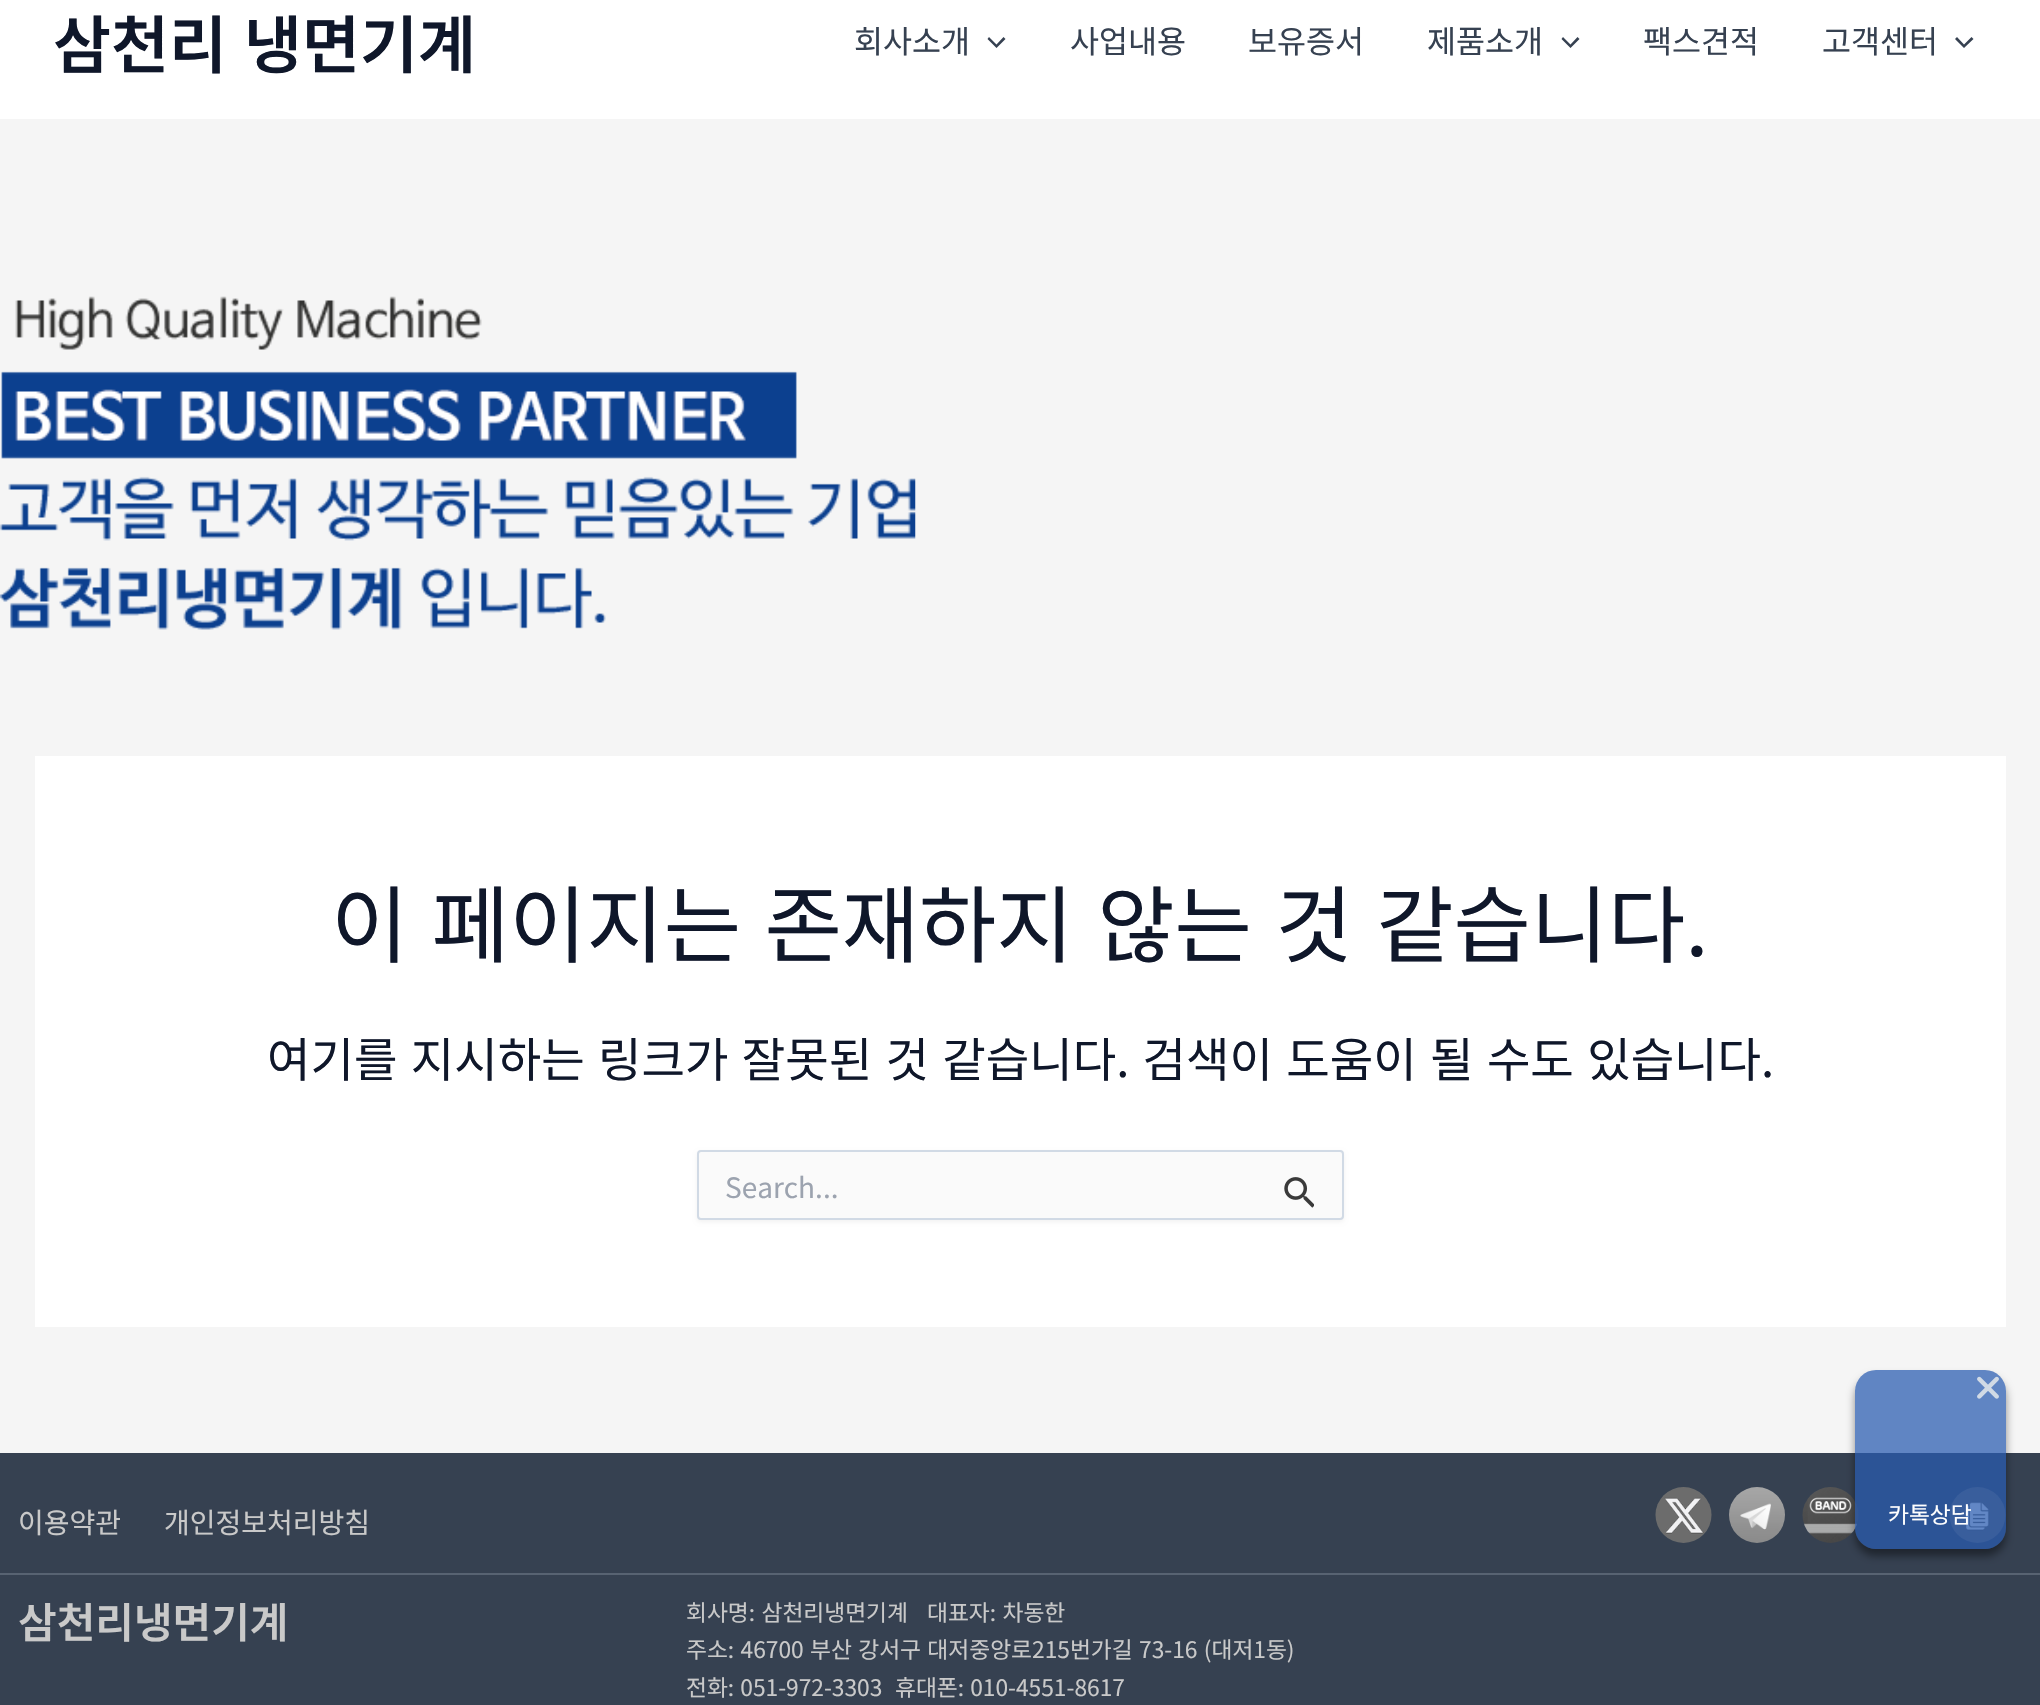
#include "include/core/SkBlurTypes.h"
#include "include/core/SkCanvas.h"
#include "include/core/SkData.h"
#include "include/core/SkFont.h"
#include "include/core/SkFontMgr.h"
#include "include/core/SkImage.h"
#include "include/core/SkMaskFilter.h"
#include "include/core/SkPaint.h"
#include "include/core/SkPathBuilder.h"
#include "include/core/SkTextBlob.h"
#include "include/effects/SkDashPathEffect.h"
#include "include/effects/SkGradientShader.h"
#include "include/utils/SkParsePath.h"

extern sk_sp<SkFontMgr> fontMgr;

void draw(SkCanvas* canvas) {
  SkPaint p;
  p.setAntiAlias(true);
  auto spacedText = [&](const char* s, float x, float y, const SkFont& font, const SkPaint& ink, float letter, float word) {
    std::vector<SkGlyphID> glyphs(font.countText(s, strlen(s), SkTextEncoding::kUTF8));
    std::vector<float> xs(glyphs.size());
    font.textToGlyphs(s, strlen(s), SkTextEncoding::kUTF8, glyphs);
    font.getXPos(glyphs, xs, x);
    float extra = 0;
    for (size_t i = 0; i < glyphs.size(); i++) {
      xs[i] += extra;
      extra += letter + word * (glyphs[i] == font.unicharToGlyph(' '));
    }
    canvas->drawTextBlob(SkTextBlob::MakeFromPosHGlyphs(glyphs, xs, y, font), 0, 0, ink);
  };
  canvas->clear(SkColorSetRGB(245, 245, 245));
  p.setColor(SK_ColorWHITE);
  canvas->drawRect(SkRect::MakeLTRB(0, 0, 2040, 119), p);
  p.setColor(SkColorSetRGB(54, 65, 81));
  canvas->drawPath(SkPathBuilder().moveTo(987.5f, 39).lineTo(996.5f, 48).lineTo(1005.5f, 39).lineTo(1003.5f, 37).lineTo(996.5f, 44.5f).lineTo(989, 37).close().detach(), p);
  canvas->drawPath(SkPathBuilder().moveTo(1561.5f, 39).lineTo(1570.5f, 48).lineTo(1579.5f, 39).lineTo(1577.5f, 37).lineTo(1570.5f, 44.5f).lineTo(1563, 37).close().detach(), p);
  canvas->drawPath(SkPathBuilder().moveTo(1955, 39).lineTo(1964, 48).lineTo(1973.5f, 39).lineTo(1971.5f, 37).lineTo(1964, 44.5f).lineTo(1957, 37).close().detach(), p);
  canvas->drawImageRect(SkImages::DeferredFromEncodedData(SkData::MakeFromFileName("images/1.png")), SkRect::MakeLTRB(0, 296, 916, 630), SkSamplingOptions());
  p.setColor(SK_ColorWHITE);
  canvas->drawRect(SkRect::MakeLTRB(35, 756, 2006, 1327), p);
  p.setColor(SkColorSetARGB(13, 0, 0, 0));
  p.setMaskFilter(SkMaskFilter::MakeBlur(kNormal_SkBlurStyle, 2));
  canvas->drawRoundRect(SkRect::MakeLTRB(697, 1152, 1344, 1222), 4, 4, p);
  p.setMaskFilter(nullptr);
  p.setColor(SkColorSetRGB(250, 250, 250));
  canvas->drawRoundRect(SkRect::MakeLTRB(698, 1151, 1343, 1219), 3, 3, p);
  p.setStyle(SkPaint::kStroke_Style);
  p.setStrokeWidth(2);
  p.setColor(SkColorSetRGB(209, 218, 229));
  canvas->drawRoundRect(SkRect::MakeLTRB(698, 1151, 1343, 1219), 3, 3, p);
  canvas->drawImageRect(SkImages::DeferredFromEncodedData(SkData::MakeFromFileName("images/2.png")), SkRect::MakeLTRB(1284, 1177, 1314, 1208), SkSamplingOptions());
  p.setStyle(SkPaint::kFill_Style);
  p.setColor(SkColorSetRGB(54, 65, 81));
  canvas->drawRect(SkRect::MakeLTRB(0, 1453, 2040, 1705), p);
  p.setColor(SkColorSetRGB(88, 99, 114));
  canvas->drawRect(SkRect::MakeLTRB(0, 1573, 2040, 1575), p);
  canvas->drawImageRect(SkImages::DeferredFromEncodedData(SkData::MakeFromFileName("images/3.png")), SkRect::MakeLTRB(1655, 1487, 1712, 1543), SkSamplingOptions());
  canvas->drawImageRect(SkImages::DeferredFromEncodedData(SkData::MakeFromFileName("images/4.png")), SkRect::MakeLTRB(1729, 1487, 1785, 1543), SkSamplingOptions());
  canvas->drawImageRect(SkImages::DeferredFromEncodedData(SkData::MakeFromFileName("images/5.png")), SkRect::MakeLTRB(1802, 1487, 1859, 1543), SkSamplingOptions());
  canvas->drawImageRect(SkImages::DeferredFromEncodedData(SkData::MakeFromFileName("images/6.png")), SkRect::MakeLTRB(1949, 1487, 2006, 1543), SkSamplingOptions());
  canvas->save();
  canvas->clipPath(SkPathBuilder(SkPathFillType::kEvenOdd).moveTo(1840, 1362).lineTo(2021, 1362).lineTo(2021, 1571).lineTo(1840, 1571).close().moveTo(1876, 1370).lineTo(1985, 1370).cubicTo(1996.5f, 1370, 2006, 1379.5f, 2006, 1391).lineTo(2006, 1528).cubicTo(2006, 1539.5f, 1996.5f, 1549, 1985, 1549).lineTo(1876, 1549).cubicTo(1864.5f, 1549, 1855, 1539.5f, 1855, 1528).lineTo(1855, 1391).cubicTo(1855, 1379.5f, 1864.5f, 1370, 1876, 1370).close().detach(), true);
  p.setColor(SkColorSetARGB(112, 0, 0, 0));
  p.setMaskFilter(SkMaskFilter::MakeBlur(kNormal_SkBlurStyle, 4.5f));
  canvas->drawRoundRect(SkRect::MakeLTRB(1855, 1377, 2006, 1556), 21, 21, p);
  p.setMaskFilter(nullptr);
  canvas->restore();
  p.setColor(SkColorSetARGB(186, 40, 90, 176));
  canvas->drawRoundRect(SkRect::MakeLTRB(1855, 1370, 2006, 1549), 21, 21, p);
  canvas->drawImageRect(SkImages::DeferredFromEncodedData(SkData::MakeFromFileName("images/7.png")), SkRect::MakeLTRB(1977, 1376, 1999, 1399), SkSamplingOptions());
  SkFont font1(fontMgr->matchFamilyStyle("Noto Sans KR", SkFontStyle(600, SkFontStyle::kNormal_Width, SkFontStyle::kUpright_Slant)), 63);
  font1.setSubpixel(true);
  p.setColor(SkColorSetRGB(15, 23, 42));
  spacedText("삼천리 냉면기계", 53, 68, font1, p, 0, 3);
  SkFont font2(fontMgr->matchFamilyStyle("Noto Sans KR", SkFontStyle::Normal()), 31.5f);
  font2.setSubpixel(true);
  p.setColor(SkColorSetRGB(54, 65, 81));
  canvas->drawString("회사소개", 854, 53, font2, p);
  canvas->drawString("사업내용", 1070, 53, font2, p);
  canvas->drawString("보유증서", 1248, 53, font2, p);
  canvas->drawString("제품소개", 1427, 53, font2, p);
  canvas->drawString("팩스견적", 1643, 53, font2, p);
  canvas->drawString("고객센터", 1822, 53, font2, p);
  SkFont font3(fontMgr->matchFamilyStyle("Noto Sans KR", SkFontStyle::Normal()), 84);
  font3.setSubpixel(true);
  p.setColor(SkColorSetRGB(15, 23, 42));
  spacedText("이 페이지는 존재하지 않는 것 같습니다.", 331, 956, font3, p, 0, 4.75f);
  SkFont font4(fontMgr->matchFamilyStyle("Noto Sans KR", SkFontStyle::Normal()), 47.25f);
  font4.setSubpixel(true);
  spacedText("여기를 지시하는 링크가 잘못된 것 같습니다. 검색이 도움이 될 수도 있습니다.", 267, 1077, font4, p, 0, 2.75f);
  SkFont font5(fontMgr->matchFamilyStyle("Noto Sans KR", SkFontStyle::Normal()), 28);
  font5.setSubpixel(true);
  p.setColor(SkColorSetRGB(156, 163, 175));
  canvas->drawString("Search...", 725, 1198, font5, p);
  p.setColor(SkColorSetRGB(201, 201, 201));
  canvas->drawString("이용약관", 18, 1533, font5, p);
  canvas->drawString("개인정보처리방침", 164, 1533, font5, p);
  SkFont font6(fontMgr->matchFamilyStyle("Noto Sans KR", SkFontStyle(600, SkFontStyle::kNormal_Width, SkFontStyle::kUpright_Slant)), 42);
  font6.setSubpixel(true);
  canvas->drawString("삼천리냉면기계", 18, 1638, font6, p);
  SkFont font7(fontMgr->matchFamilyStyle("Noto Sans KR", SkFontStyle::Normal()), 22.75f);
  font7.setSubpixel(true);
  spacedText("회사명: 삼천리냉면기계   대표자: 차동한", 686, 1621, font7, p, 0, 1.25f);
  spacedText("주소: 46700 부산 강서구 대저중앙로215번가길 73-16 (대저1동)", 686, 1658, font7, p, 0, 1.25f);
  spacedText("전화: 051-972-3303", 686, 1696, font7, p, 0, 1);
  spacedText("휴대폰: 010-4551-8617", 895, 1696, font7, p, 0, 1);
  p.setColor(SK_ColorWHITE);
  canvas->drawString("카톡상담", 1888, 1523, font7, p);
}
